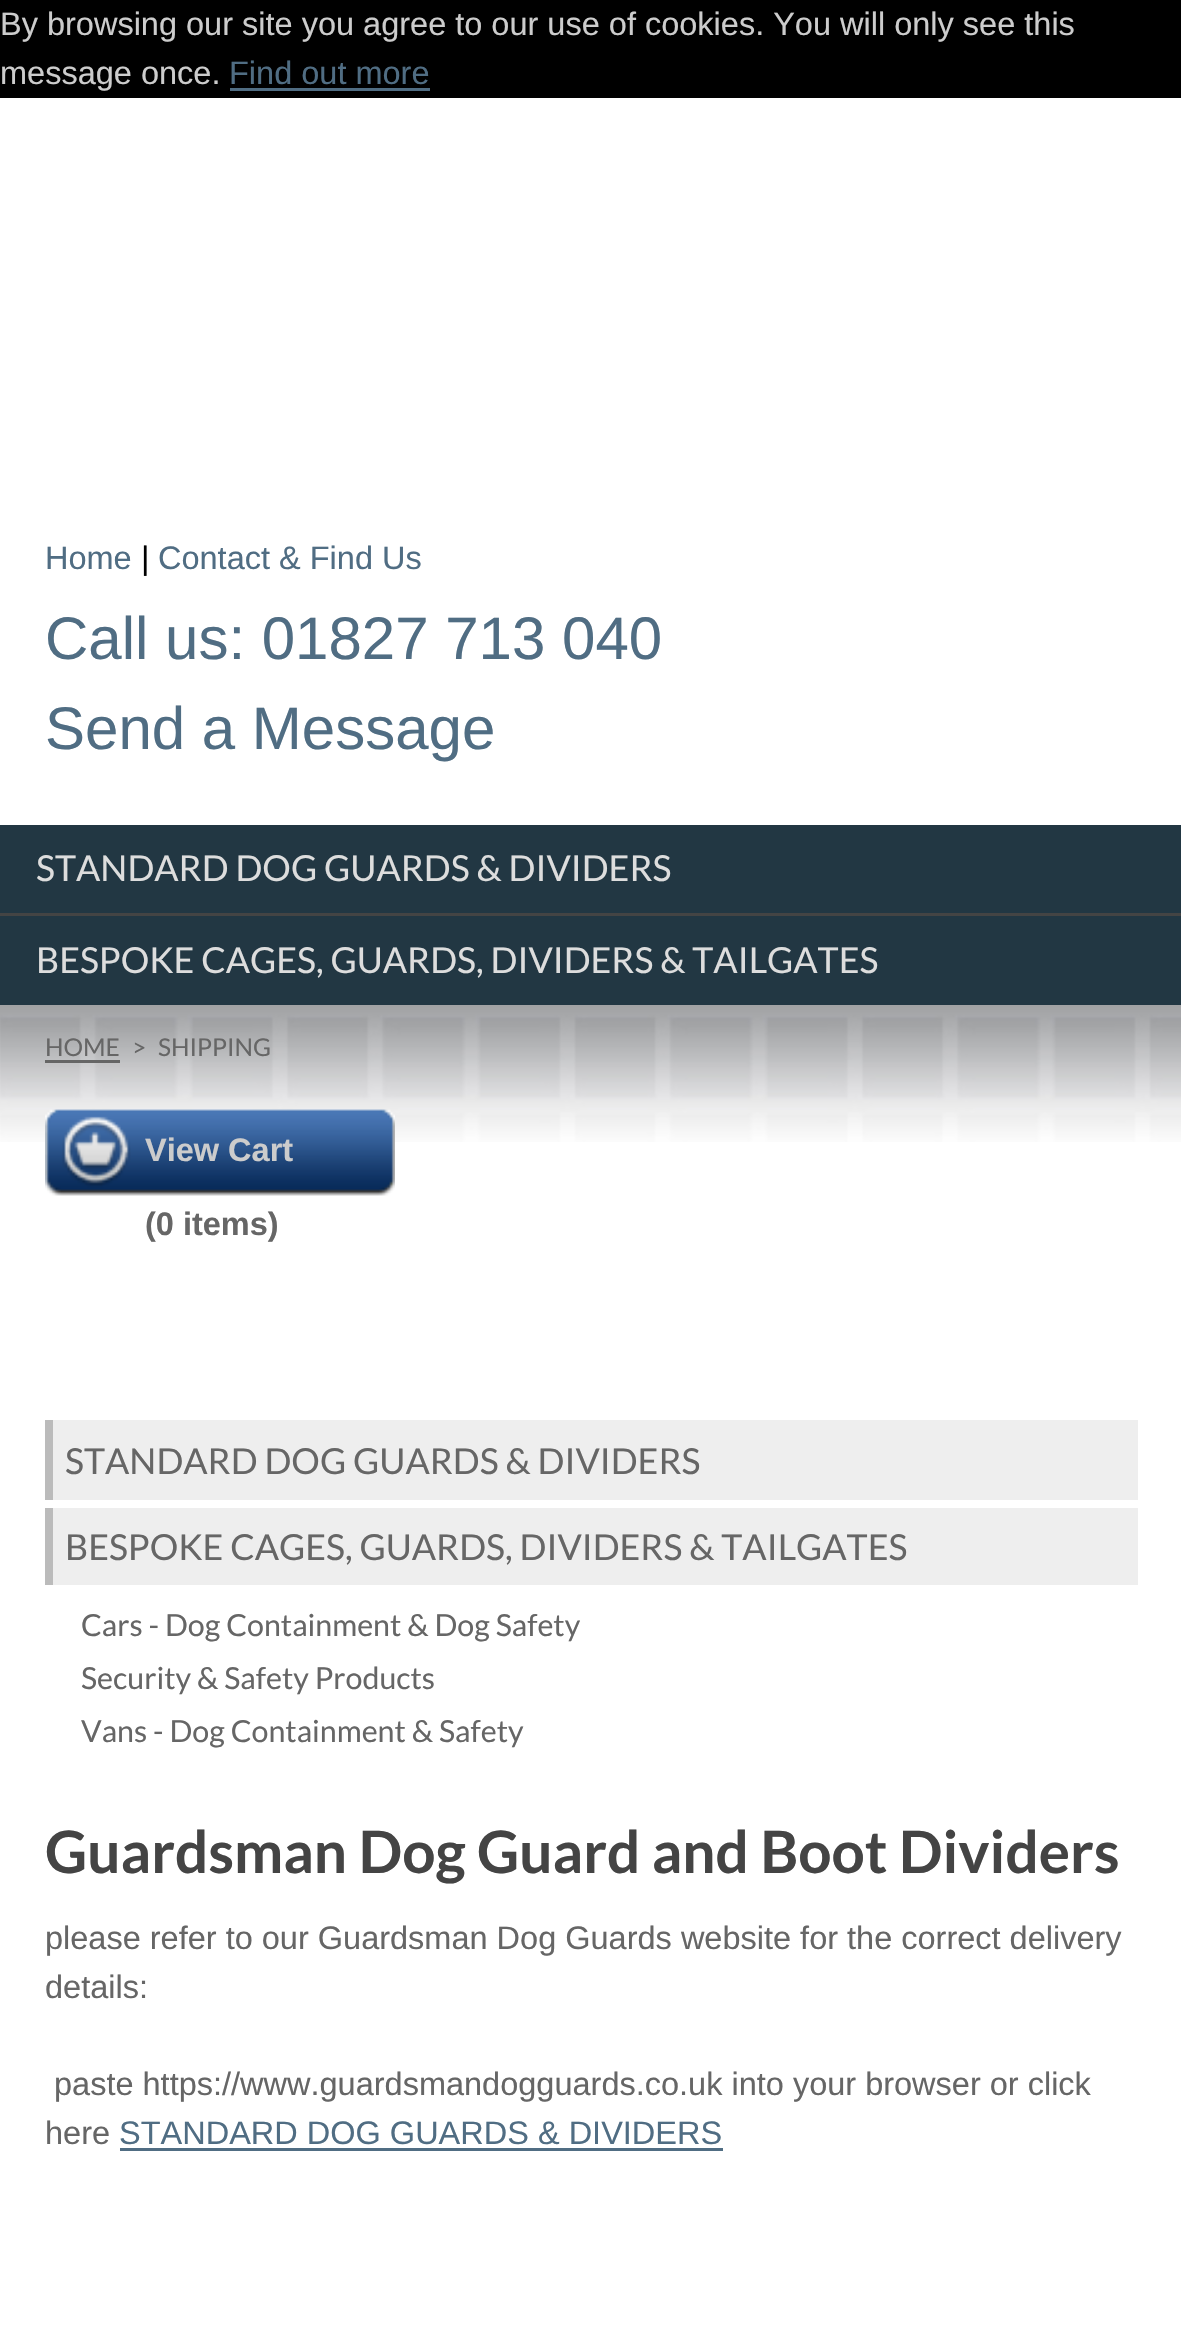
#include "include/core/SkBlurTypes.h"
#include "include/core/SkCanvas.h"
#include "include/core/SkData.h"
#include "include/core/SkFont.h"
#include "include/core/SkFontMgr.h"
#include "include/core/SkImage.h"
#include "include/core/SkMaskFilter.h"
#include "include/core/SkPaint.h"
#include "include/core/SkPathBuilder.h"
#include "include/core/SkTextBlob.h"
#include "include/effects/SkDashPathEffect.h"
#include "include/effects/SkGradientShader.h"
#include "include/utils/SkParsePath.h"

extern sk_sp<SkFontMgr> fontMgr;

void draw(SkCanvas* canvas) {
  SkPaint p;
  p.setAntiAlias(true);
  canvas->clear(SK_ColorWHITE);
  p.setColor(SK_ColorBLACK);
  canvas->drawRect(SkRect::MakeLTRB(0, 0, 1181, 98), p);
  p.setColor(SkColorSetRGB(80, 109, 131));
  canvas->drawRect(SkRect::MakeLTRB(230, 88, 430, 91), p);
  p.setColor(SkColorSetRGB(34, 55, 67));
  canvas->drawRect(SkRect::MakeLTRB(0, 825, 1181, 1005), p);
  p.setColor(SkColorSetRGB(68, 68, 68));
  canvas->drawRect(SkRect::MakeLTRB(0, 913, 1181, 916), p);
  canvas->drawImageRect(SkImages::DeferredFromEncodedData(SkData::MakeFromFileName("images/1.png")), SkRect::MakeLTRB(0, 1005, 1181, 1142), SkSamplingOptions());
  p.setColor(SkColorSetRGB(102, 102, 102));
  canvas->drawRect(SkRect::MakeLTRB(45, 1060, 120, 1063), p);
  canvas->drawImageRect(SkImages::DeferredFromEncodedData(SkData::MakeFromFileName("images/2.png")), SkRect::MakeLTRB(45, 1109, 395, 1196), SkSamplingOptions());
  p.setColor(SkColorSetRGB(238, 238, 238));
  canvas->drawRect(SkRect::MakeLTRB(53, 1420, 1138, 1500), p);
  p.setColor(SkColorSetRGB(187, 187, 187));
  canvas->drawRect(SkRect::MakeLTRB(45, 1420, 53, 1500), p);
  p.setColor(SkColorSetRGB(238, 238, 238));
  canvas->drawRect(SkRect::MakeLTRB(53, 1508, 1138, 1585), p);
  p.setColor(SkColorSetRGB(187, 187, 187));
  canvas->drawRect(SkRect::MakeLTRB(45, 1508, 53, 1585), p);
  p.setColor(SkColorSetRGB(80, 109, 131));
  canvas->drawRect(SkRect::MakeLTRB(120, 2148, 723, 2151), p);
  SkFont font1(fontMgr->matchFamilyStyle("Liberation Sans", SkFontStyle::Normal()), 32.5f);
  font1.setSubpixel(true);
  p.setColor(SkColorSetRGB(204, 204, 204));
  canvas->drawString("By browsing our site you agree to our use of cookies. You will only see this", 0, 35, font1, p);
  canvas->drawString("message once.", 0, 84, font1, p);
  p.setColor(SkColorSetRGB(80, 109, 131));
  canvas->drawString("Find out more", 229, 84, font1, p);
  canvas->drawString("Home", 45, 569, font1, p);
  p.setColor(SK_ColorBLACK);
  canvas->drawString("|", 141, 569, font1, p);
  p.setColor(SkColorSetRGB(80, 109, 131));
  canvas->drawString("Contact & Find Us", 158, 569, font1, p);
  SkFont font2(fontMgr->matchFamilyStyle("Liberation Sans", SkFontStyle::Normal()), 60);
  font2.setSubpixel(true);
  canvas->drawString("Call us: 01827 713 040", 45, 659, font2, p);
  canvas->drawString("Send a Message", 45, 749, font2, p);
  SkFont font3(fontMgr->matchFamilyStyle("Lato", SkFontStyle::Normal()), 35.75f);
  font3.setSubpixel(true);
  p.setColor(SkColorSetRGB(221, 221, 221));
  canvas->drawString("STANDARD DOG GUARDS & DIVIDERS", 36, 881, font3, p);
  canvas->drawString("BESPOKE CAGES, GUARDS, DIVIDERS & TAILGATES", 36, 973, font3, p);
  SkFont font4(fontMgr->matchFamilyStyle("Lato", SkFontStyle::Normal()), 24.5f);
  font4.setSubpixel(true);
  p.setColor(SkColorSetRGB(102, 102, 102));
  canvas->drawString("HOME", 45, 1056, font4, p);
  canvas->drawString(">", 132, 1056, font4, p);
  canvas->drawString("SHIPPING", 158, 1056, font4, p);
  SkFont font5(fontMgr->matchFamilyStyle("Liberation Sans", SkFontStyle::Bold()), 32.5f);
  font5.setSubpixel(true);
  p.setColor(SkColorSetRGB(204, 204, 204));
  canvas->drawString("View Cart", 145, 1161, font5, p);
  p.setColor(SkColorSetRGB(102, 102, 102));
  canvas->drawString("(0 items)", 145, 1235, font5, p);
  canvas->drawString("STANDARD DOG GUARDS & DIVIDERS", 65, 1474, font3, p);
  canvas->drawString("BESPOKE CAGES, GUARDS, DIVIDERS & TAILGATES", 65, 1560, font3, p);
  SkFont font6(fontMgr->matchFamilyStyle("Lato", SkFontStyle::Normal()), 30.4f);
  font6.setSubpixel(true);
  canvas->drawString("Cars - Dog Containment & Dog Safety", 81, 1636, font6, p);
  canvas->drawString("Security & Safety Products", 81, 1689, font6, p);
  canvas->drawString("Vans - Dog Containment & Safety", 81, 1742, font6, p);
  SkFont font7(fontMgr->matchFamilyStyle("Lato", SkFontStyle::Bold()), 58.5f);
  font7.setSubpixel(true);
  p.setColor(SkColorSetRGB(68, 68, 68));
  canvas->drawString("Guardsman Dog Guard and Boot Dividers", 45, 1873, font7, p);
  p.setColor(SkColorSetRGB(102, 102, 102));
  canvas->drawString("please refer to our Guardsman Dog Guards website for the correct delivery", 45, 1949, font1, p);
  canvas->drawString("details:", 45, 1998, font1, p);
  canvas->drawString("paste https://www.guardsmandogguards.co.uk into your browser or click", 54, 2095, font1, p);
  canvas->drawString("here", 45, 2144, font1, p);
  p.setColor(SkColorSetRGB(80, 109, 131));
  canvas->drawString("STANDARD DOG GUARDS & DIVIDERS", 119, 2144, font1, p);
}
